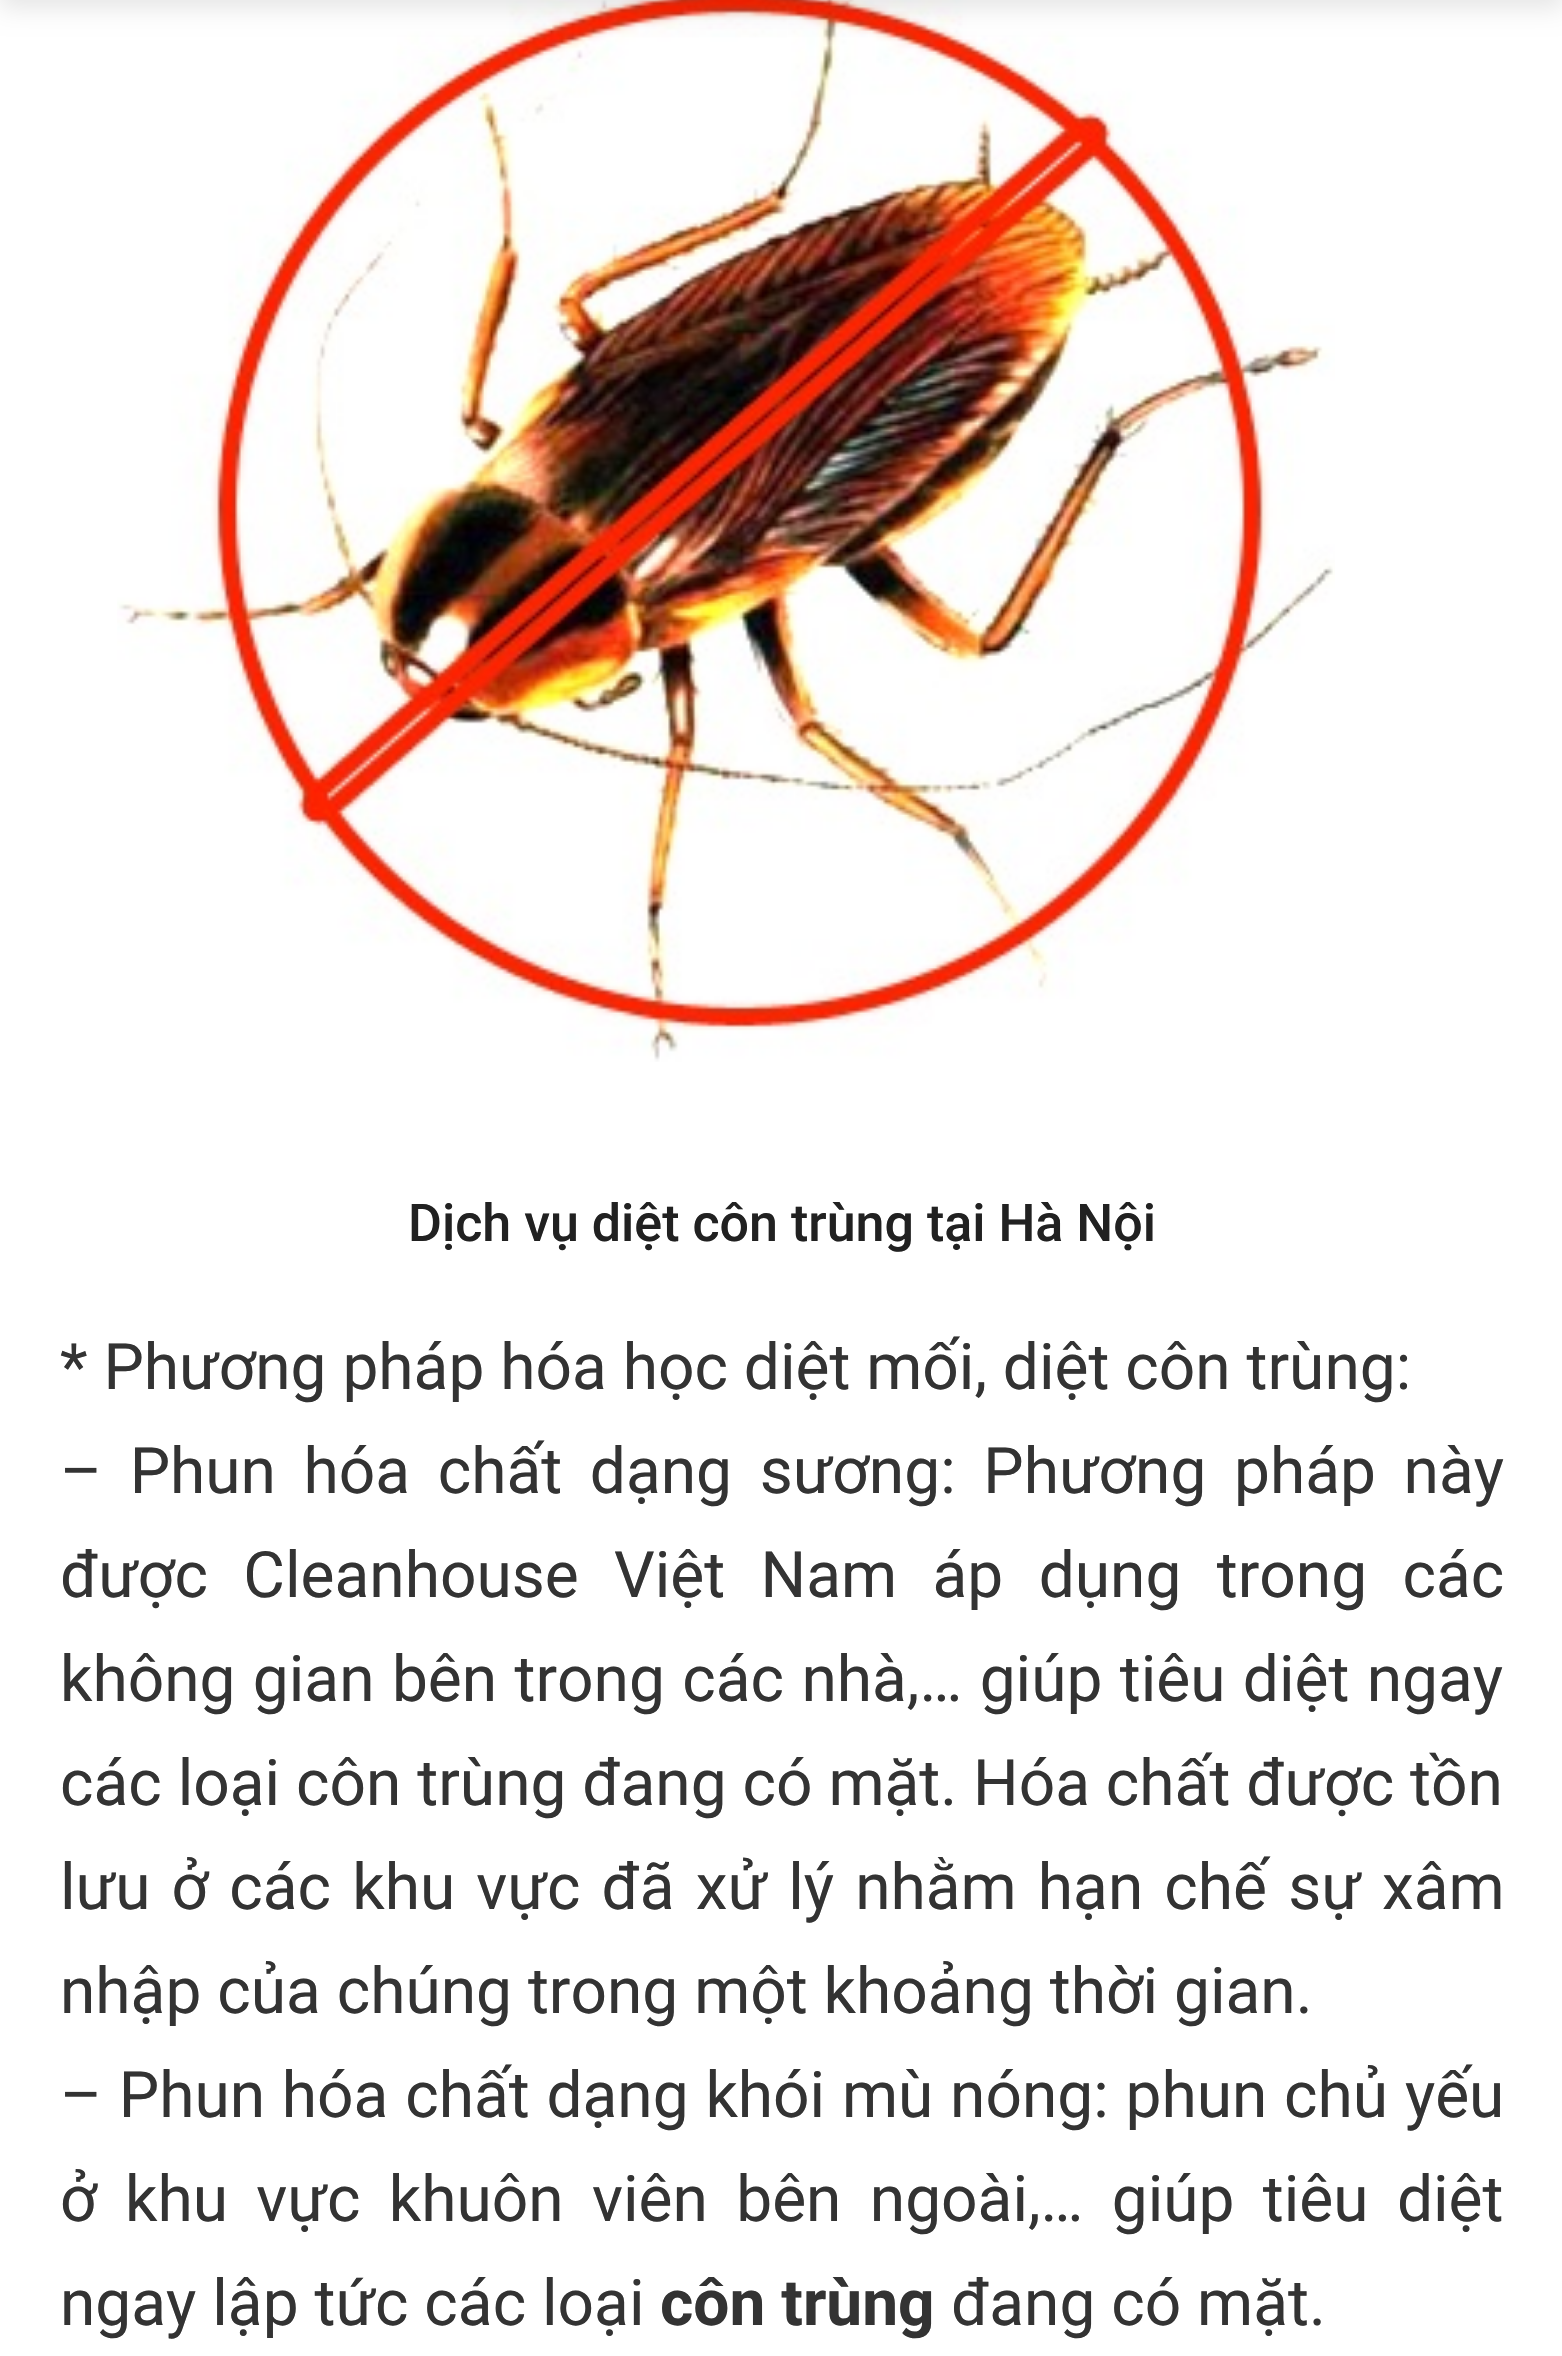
#include "include/core/SkBlurTypes.h"
#include "include/core/SkCanvas.h"
#include "include/core/SkData.h"
#include "include/core/SkFont.h"
#include "include/core/SkFontMgr.h"
#include "include/core/SkImage.h"
#include "include/core/SkMaskFilter.h"
#include "include/core/SkPaint.h"
#include "include/core/SkPathBuilder.h"
#include "include/core/SkTextBlob.h"
#include "include/effects/SkDashPathEffect.h"
#include "include/effects/SkGradientShader.h"
#include "include/utils/SkParsePath.h"

extern sk_sp<SkFontMgr> fontMgr;

void draw(SkCanvas* canvas) {
  SkPaint p;
  p.setAntiAlias(true);
  auto spacedText = [&](const char* s, float x, float y, const SkFont& font, const SkPaint& ink, float letter, float word) {
    std::vector<SkGlyphID> glyphs(font.countText(s, strlen(s), SkTextEncoding::kUTF8));
    std::vector<float> xs(glyphs.size());
    font.textToGlyphs(s, strlen(s), SkTextEncoding::kUTF8, glyphs);
    font.getXPos(glyphs, xs, x);
    float extra = 0;
    for (size_t i = 0; i < glyphs.size(); i++) {
      xs[i] += extra;
      extra += letter + word * (glyphs[i] == font.unicharToGlyph(' '));
    }
    canvas->drawTextBlob(SkTextBlob::MakeFromPosHGlyphs(glyphs, xs, y, font), 0, 0, ink);
  };
  canvas->clear(SK_ColorWHITE);
  canvas->drawImageRect(SkImages::DeferredFromEncodedData(SkData::MakeFromFileName("images/1.png")), SkRect::MakeLTRB(117, 0, 1335, 1062), SkSamplingOptions());
  p.setColor(SkColorSetARGB(26, 0, 0, 0));
  p.setMaskFilter(SkMaskFilter::MakeBlur(kNormal_SkBlurStyle, 12));
  canvas->drawRect(SkRect::MakeLTRB(0, -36, 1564, 8), p);
  p.setMaskFilter(nullptr);
  SkFont font1(fontMgr->matchFamilyStyle("Roboto", SkFontStyle(500, SkFontStyle::kNormal_Width, SkFontStyle::kUpright_Slant)), 52);
  font1.setSubpixel(true);
  p.setColor(SkColorSetRGB(33, 33, 33));
  canvas->drawString("Dịch vụ diệt côn trùng tại Hà Nội", 408, 1241, font1, p);
  SkFont font2(fontMgr->matchFamilyStyle("Roboto", SkFontStyle::Normal()), 64);
  font2.setSubpixel(true);
  p.setColor(SkColorSetRGB(51, 51, 51));
  canvas->drawString("* Phương pháp hóa học diệt mối, diệt côn trùng:", 60, 1389, font2, p);
  spacedText("– Phun hóa chất dạng sương: Phương pháp này", 60, 1493, font2, p, 0, 11.75f);
  spacedText("được Cleanhouse Việt Nam áp dụng trong các", 60, 1597, font2, p, 0, 19.5f);
  spacedText("không gian bên trong các nhà,… giúp tiêu diệt ngay", 60, 1701, font2, p, 0, 1.5f);
  canvas->drawString("các loại côn trùng đang có mặt. Hóa chất được tồn", 60, 1805, font2, p);
  spacedText("lưu ở các khu vực đã xử lý nhằm hạn chế sự xâm", 60, 1909, font2, p, 0, 5.25f);
  canvas->drawString("nhập của chúng trong một khoảng thời gian.", 60, 2013, font2, p);
  spacedText("– Phun hóa chất dạng khói mù nóng: phun chủ yếu", 60, 2117, font2, p, 0, 0.9f);
  spacedText("ở khu vực khuôn viên bên ngoài,… giúp tiêu diệt", 60, 2221, font2, p, 0, 12.5f);
  canvas->drawString("ngay lập tức các loại", 60, 2325, font2, p);
  SkFont font3(fontMgr->matchFamilyStyle("Roboto", SkFontStyle::Bold()), 64);
  font3.setSubpixel(true);
  canvas->drawString("côn trùng", 660, 2325, font3, p);
  canvas->drawString("đang có mặt.", 951, 2325, font2, p);
}
